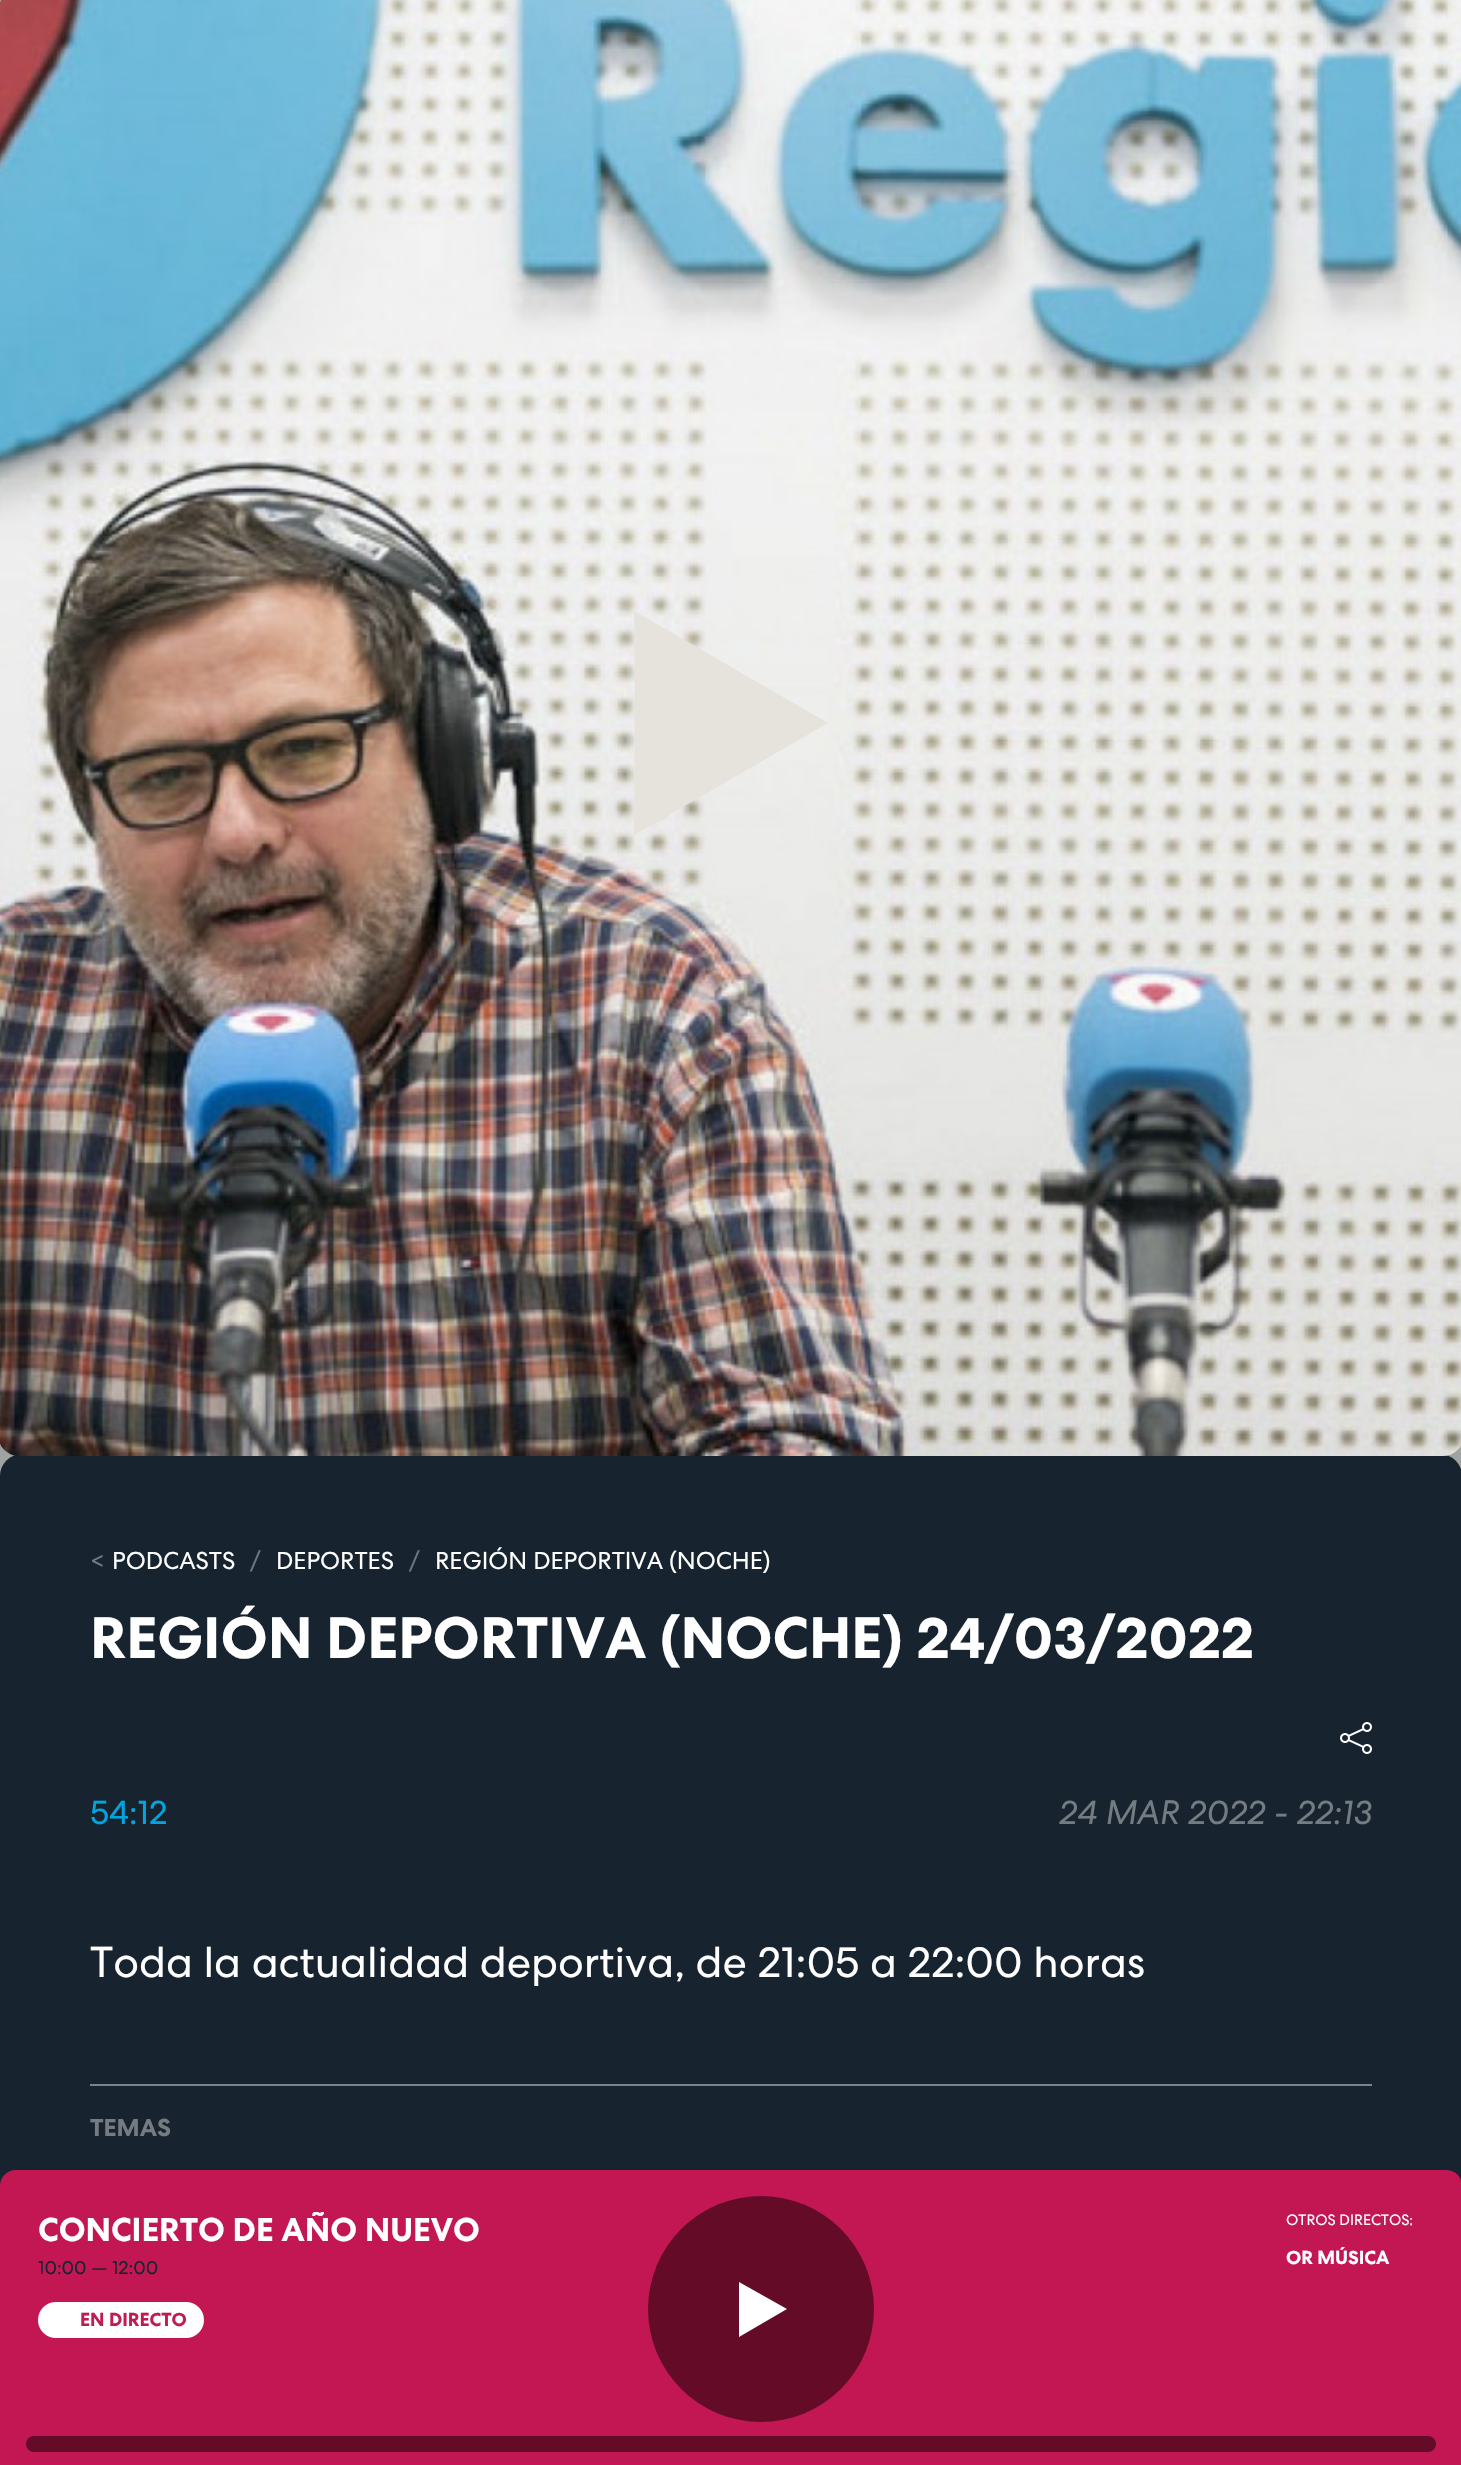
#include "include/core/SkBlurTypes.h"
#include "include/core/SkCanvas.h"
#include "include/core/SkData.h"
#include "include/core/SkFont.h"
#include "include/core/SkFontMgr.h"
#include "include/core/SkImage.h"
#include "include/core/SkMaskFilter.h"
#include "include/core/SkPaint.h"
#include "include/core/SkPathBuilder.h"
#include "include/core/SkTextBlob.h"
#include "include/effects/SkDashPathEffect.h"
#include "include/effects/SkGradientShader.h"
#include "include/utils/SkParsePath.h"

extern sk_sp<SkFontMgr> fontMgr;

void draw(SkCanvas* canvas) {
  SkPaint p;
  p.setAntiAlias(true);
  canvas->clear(SkColorSetRGB(161, 163, 163));
  p.setColor(SkColorSetRGB(23, 36, 47));
  canvas->drawRoundRect(SkRect::MakeLTRB(0, 1454, 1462, 2338), 22, 22, p);
  canvas->drawImageRect(SkImages::DeferredFromEncodedData(SkData::MakeFromFileName("images/1.png")), SkRect::MakeLTRB(0, 0, 1461, 1456), SkSamplingOptions());
  p.setColor(SkColorSetRGB(230, 226, 220));
  canvas->drawPath(SkPathBuilder().moveTo(634, 611).lineTo(828, 723).lineTo(634, 835).cubicTo(635, 834, 635, 606, 634, 611).detach(), p);
  canvas->drawImageRect(SkImages::DeferredFromEncodedData(SkData::MakeFromFileName("images/2.png")), SkRect::MakeLTRB(1340, 1722, 1372, 1754), SkSamplingOptions());
  p.setColor(SkColorSetRGB(123, 131, 139));
  canvas->drawRect(SkRect::MakeLTRB(90, 2084, 1372, 2086), p);
  p.setColor(SkColorSetRGB(194, 23, 83));
  canvas->drawPath(SkPathBuilder().moveTo(16, 2170).lineTo(1446, 2170).cubicTo(1455, 2170, 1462, 2177, 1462, 2186).lineTo(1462, 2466).lineTo(0, 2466).lineTo(0, 2186).cubicTo(0, 2177, 7, 2170, 16, 2170).close().detach(), p);
  p.setColor(SK_ColorWHITE);
  canvas->drawRoundRect(SkRect::MakeLTRB(38, 2302, 204, 2338), 18, 18, p);
  p.setColor(SkColorSetRGB(100, 11, 40));
  canvas->drawCircle(761, 2309, 113, p);
  p.setColor(SK_ColorWHITE);
  canvas->drawPath(SkPathBuilder().moveTo(739, 2282).lineTo(787, 2309).lineTo(739, 2337).close().detach(), p);
  p.setColor(SkColorSetRGB(100, 11, 40));
  canvas->drawRoundRect(SkRect::MakeLTRB(26, 2436, 1436, 2452), 8, 8, p);
  SkFont font1(fontMgr->matchFamilyStyle("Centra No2", SkFontStyle::Normal()), 24.4f);
  font1.setSubpixel(true);
  p.setColor(SkColorSetRGB(116, 124, 130));
  canvas->drawString("<", 90, 1569, font1, p);
  p.setColor(SK_ColorWHITE);
  canvas->drawString("PODCASTS", 112, 1569, font1, p);
  p.setColor(SkColorSetRGB(108, 117, 125));
  canvas->drawString("/", 250, 1569, font1, p);
  p.setColor(SK_ColorWHITE);
  canvas->drawString("DEPORTES", 276, 1569, font1, p);
  p.setColor(SkColorSetRGB(108, 117, 125));
  canvas->drawString("/", 409, 1569, font1, p);
  p.setColor(SK_ColorWHITE);
  canvas->drawString("REGIÓN DEPORTIVA (NOCHE)", 435, 1569, font1, p);
  SkFont font2(fontMgr->matchFamilyStyle("Centra No2", SkFontStyle::Bold()), 58.1f);
  font2.setSubpixel(true);
  canvas->drawString("REGIÓN DEPORTIVA (NOCHE) 24/03/2022", 90, 1658, font2, p);
  SkFont font3(fontMgr->matchFamilyStyle("Centra No2", SkFontStyle::Normal()), 33.75f);
  font3.setSubpixel(true);
  p.setColor(SkColorSetRGB(0, 165, 226));
  canvas->drawString("54:12", 90, 1824, font3, p);
  SkFont font4(fontMgr->matchFamilyStyle("Centra No2", SkFontStyle::Italic()), 33.75f);
  font4.setSubpixel(true);
  p.setColor(SkColorSetRGB(116, 124, 130));
  canvas->drawString("24 MAR 2022 - 22:13", 1059, 1824, font4, p);
  SkFont font5(fontMgr->matchFamilyStyle("Centra No2", SkFontStyle::Normal()), 43.1f);
  font5.setSubpixel(true);
  p.setColor(SK_ColorWHITE);
  canvas->drawString("Toda la actualidad deportiva, de 21:05 a 22:00 horas", 90, 1977, font5, p);
  SkFont font6(fontMgr->matchFamilyStyle("Centra No2", SkFontStyle::Bold()), 24.4f);
  font6.setSubpixel(true);
  p.setColor(SkColorSetRGB(116, 124, 130));
  canvas->drawString("TEMAS", 90, 2136, font6, p);
  canvas->save();
  canvas->clipRect(SkRect::MakeLTRB(38, 2212, 480, 2250));
  SkFont font7(fontMgr->matchFamilyStyle("Centra No2", SkFontStyle::Bold()), 33);
  font7.setSubpixel(true);
  p.setColor(SK_ColorWHITE);
  canvas->drawString("CONCIERTO DE AÑO NUEVO", 38, 2241, font7, p);
  canvas->restore();
  SkFont font8(fontMgr->matchFamilyStyle("Centra No2", SkFontStyle::Normal()), 18.75f);
  font8.setSubpixel(true);
  p.setColor(SkColorSetRGB(23, 36, 47));
  canvas->drawString("10:00 — 12:00", 38, 2274, font8, p);
  SkFont font9(fontMgr->matchFamilyStyle("Centra No2", SkFontStyle::Bold()), 18.75f);
  font9.setSubpixel(true);
  p.setColor(SkColorSetRGB(191, 27, 85));
  canvas->drawString("EN DIRECTO", 80, 2326, font9, p);
  SkFont font10(fontMgr->matchFamilyStyle("Centra No2", SkFontStyle::Normal()), 15);
  font10.setSubpixel(true);
  p.setColor(SK_ColorWHITE);
  canvas->drawString("OTROS DIRECTOS:", 1286, 2225, font10, p);
  canvas->drawString("OR MÚSICA", 1286, 2264, font9, p);
}
